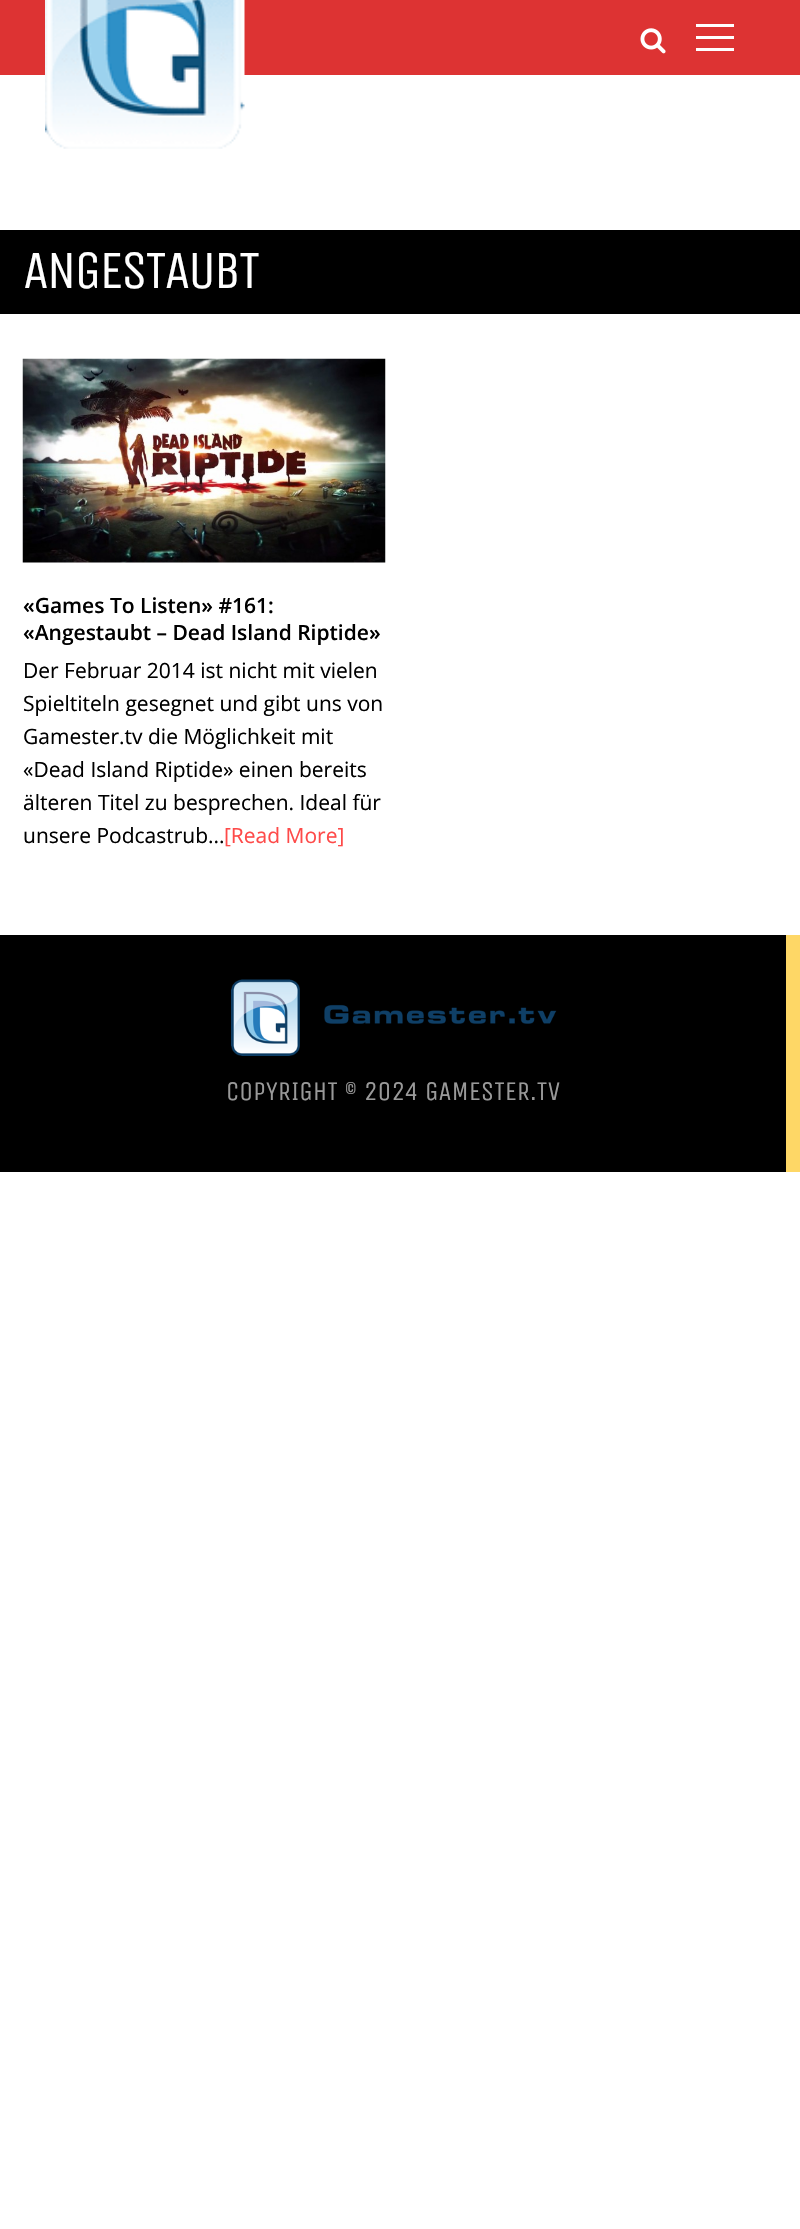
#include "include/core/SkBlurTypes.h"
#include "include/core/SkCanvas.h"
#include "include/core/SkData.h"
#include "include/core/SkFont.h"
#include "include/core/SkFontMgr.h"
#include "include/core/SkImage.h"
#include "include/core/SkMaskFilter.h"
#include "include/core/SkPaint.h"
#include "include/core/SkPathBuilder.h"
#include "include/core/SkTextBlob.h"
#include "include/effects/SkDashPathEffect.h"
#include "include/effects/SkGradientShader.h"
#include "include/utils/SkParsePath.h"

extern sk_sp<SkFontMgr> fontMgr;

void draw(SkCanvas* canvas) {
  SkPaint p;
  p.setAntiAlias(true);
  auto spacedText = [&](const char* s, float x, float y, const SkFont& font, const SkPaint& ink, float letter, float word) {
    std::vector<SkGlyphID> glyphs(font.countText(s, strlen(s), SkTextEncoding::kUTF8));
    std::vector<float> xs(glyphs.size());
    font.textToGlyphs(s, strlen(s), SkTextEncoding::kUTF8, glyphs);
    font.getXPos(glyphs, xs, x);
    float extra = 0;
    for (size_t i = 0; i < glyphs.size(); i++) {
      xs[i] += extra;
      extra += letter + word * (glyphs[i] == font.unicharToGlyph(' '));
    }
    canvas->drawTextBlob(SkTextBlob::MakeFromPosHGlyphs(glyphs, xs, y, font), 0, 0, ink);
  };
  canvas->clear(SK_ColorWHITE);
  p.setColor(SkColorSetRGB(221, 51, 51));
  canvas->drawRect(SkRect::MakeLTRB(0, 0, 800, 75), p);
  canvas->drawImageRect(SkImages::DeferredFromEncodedData(SkData::MakeFromFileName("images/1.png")), SkRect::MakeLTRB(45, 0, 245, 149), SkSamplingOptions());
  canvas->drawImageRect(SkImages::DeferredFromEncodedData(SkData::MakeFromFileName("images/2.png")), SkRect::MakeLTRB(640, 28, 666, 54), SkSamplingOptions());
  p.setColor(SK_ColorWHITE);
  canvas->drawRect(SkRect::MakeLTRB(696, 36, 734, 39), p);
  canvas->drawRect(SkRect::MakeLTRB(696, 24, 734, 27), p);
  canvas->drawRect(SkRect::MakeLTRB(696, 48, 734, 51), p);
  p.setColor(SK_ColorBLACK);
  canvas->drawRect(SkRect::MakeLTRB(0, 230, 800, 314), p);
  canvas->drawImageRect(SkImages::DeferredFromEncodedData(SkData::MakeFromFileName("images/3.png")), SkRect::MakeLTRB(22, 358, 386, 563), SkSamplingOptions());
  canvas->drawRect(SkRect::MakeLTRB(0, 935, 786, 1172), p);
  p.setColor(SkColorSetRGB(254, 215, 102));
  canvas->drawRect(SkRect::MakeLTRB(786, 935, 800, 1172), p);
  canvas->drawImageRect(SkImages::DeferredFromEncodedData(SkData::MakeFromFileName("images/4.png")), SkRect::MakeLTRB(231, 979, 557, 1056), SkSamplingOptions());
  SkFont font1(fontMgr->matchFamilyStyle("Unica One", SkFontStyle::Normal()), 54);
  font1.setSubpixel(true);
  p.setColor(SK_ColorWHITE);
  spacedText("ANGESTAUBT", 23, 288, font1, p, -2.25f, 0);
  SkFont font2(fontMgr->matchFamilyStyle("Open Sans", SkFontStyle(600, SkFontStyle::kNormal_Width, SkFontStyle::kUpright_Slant)), 21);
  font2.setSubpixel(true);
  p.setColor(SK_ColorBLACK);
  canvas->drawString("«Games To Listen» #161:", 23, 613, font2, p);
  canvas->drawString("«Angestaubt – Dead Island Riptide»", 23, 640, font2, p);
  SkFont font3(fontMgr->matchFamilyStyle("Open Sans", SkFontStyle::Normal()), 21);
  font3.setSubpixel(true);
  canvas->drawString("Der Februar 2014 ist nicht mit vielen", 23, 678, font3, p);
  canvas->drawString("Spieltiteln gesegnet und gibt uns von", 23, 711, font3, p);
  canvas->drawString("Gamester.tv die Möglichkeit mit", 23, 744, font3, p);
  canvas->drawString("«Dead Island Riptide» einen bereits", 23, 777, font3, p);
  canvas->drawString("älteren Titel zu besprechen. Ideal für", 23, 810, font3, p);
  canvas->drawString("unsere Podcastrub...", 23, 843, font3, p);
  p.setColor(SkColorSetRGB(254, 74, 73));
  canvas->drawString("[Read More]", 224, 843, font3, p);
  SkFont font4(fontMgr->matchFamilyStyle("Unica One", SkFontStyle::Normal()), 27);
  font4.setSubpixel(true);
  p.setColor(SkColorSetRGB(153, 153, 153));
  canvas->drawString("COPYRIGHT © 2024 GAMESTER.TV", 226, 1100, font4, p);
}
